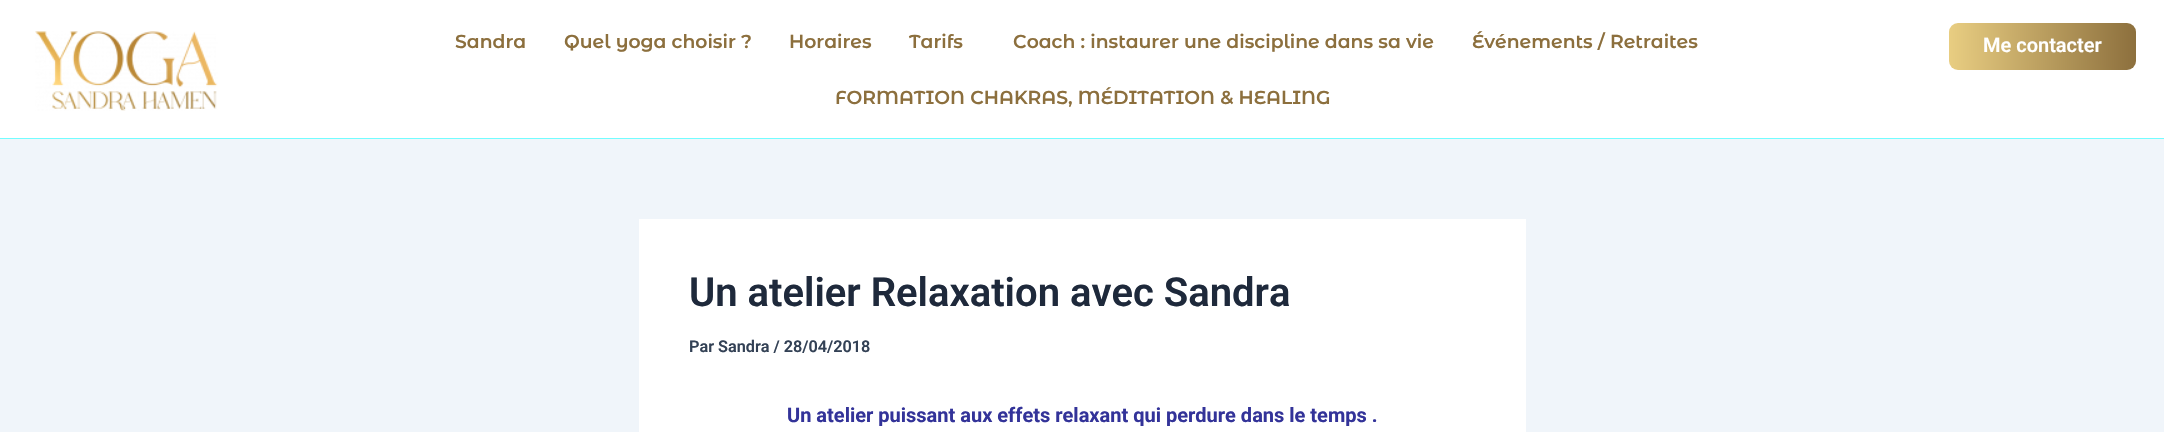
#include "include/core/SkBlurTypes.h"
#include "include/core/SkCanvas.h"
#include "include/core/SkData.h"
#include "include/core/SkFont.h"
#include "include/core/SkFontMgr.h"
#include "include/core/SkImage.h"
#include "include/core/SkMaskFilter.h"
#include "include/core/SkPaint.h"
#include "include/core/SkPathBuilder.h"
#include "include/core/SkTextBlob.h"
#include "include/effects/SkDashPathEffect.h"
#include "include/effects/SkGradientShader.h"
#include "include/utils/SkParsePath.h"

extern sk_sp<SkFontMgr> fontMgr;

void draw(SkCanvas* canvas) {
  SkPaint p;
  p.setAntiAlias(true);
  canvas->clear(SkColorSetRGB(240, 245, 250));
  p.setColor(SK_ColorWHITE);
  canvas->drawRect(SkRect::MakeLTRB(0, 0, 2164, 138), p);
  p.setColor(SkColorSetRGB(115, 253, 255));
  canvas->drawRect(SkRect::MakeLTRB(0, 138, 2164, 139), p);
  canvas->drawImageRect(SkImages::DeferredFromEncodedData(SkData::MakeFromFileName("images/1.png")), SkRect::MakeLTRB(35, 31, 218, 111), SkSamplingOptions());
  {
    const SkColor colors[] = {SkColorSetRGB(140, 111, 61), SkColorSetRGB(233, 206, 130)};
    const float stops[] = {0, 1};
    const SkPoint ends[] = {{2137, 45}, {1948, 48}};
    p.setShader(SkGradientShader::MakeLinear(ends, colors, stops, 2, SkTileMode::kClamp));
    p.setAlpha(255);
  }
  canvas->drawRoundRect(SkRect::MakeLTRB(1949, 23, 2136, 70), 9, 9, p);
  p.setShader(nullptr);
  p.setColor(SK_ColorWHITE);
  canvas->drawRect(SkRect::MakeLTRB(639, 219, 1526, 432), p);
  SkFont font1(fontMgr->matchFamilyStyle("Montserrat Alternates", SkFontStyle(600, SkFontStyle::kNormal_Width, SkFontStyle::kUpright_Slant)), 18.75f);
  font1.setSubpixel(true);
  p.setColor(SkColorSetRGB(140, 111, 61));
  canvas->drawString("Sandra", 455, 48, font1, p);
  canvas->drawString("Quel yoga choisir ?", 564, 48, font1, p);
  canvas->drawString("Horaires", 789, 48, font1, p);
  canvas->drawString("Tarifs", 909, 48, font1, p);
  canvas->drawString("Coach : instaurer une discipline dans sa vie", 1013, 48, font1, p);
  canvas->drawString("Événements / Retraites", 1472, 48, font1, p);
  canvas->drawString("FORMATION CHAKRAS, MÉDITATION & HEALING", 835, 104, font1, p);
  SkFont font2(fontMgr->matchFamilyStyle("Roboto", SkFontStyle(600, SkFontStyle::kNormal_Width, SkFontStyle::kUpright_Slant)), 20);
  font2.setSubpixel(true);
  p.setColor(SK_ColorWHITE);
  canvas->drawString("Me contacter", 1983, 52, font2, p);
  SkFont font3(fontMgr->matchFamilyStyle("Roboto", SkFontStyle(600, SkFontStyle::kNormal_Width, SkFontStyle::kUpright_Slant)), 40);
  font3.setSubpixel(true);
  p.setColor(SkColorSetRGB(30, 41, 59));
  canvas->drawString("Un atelier Relaxation avec Sandra", 689, 306, font3, p);
  SkFont font4(fontMgr->matchFamilyStyle("Roboto", SkFontStyle(600, SkFontStyle::kNormal_Width, SkFontStyle::kUpright_Slant)), 16.25f);
  font4.setSubpixel(true);
  p.setColor(SkColorSetRGB(51, 65, 85));
  canvas->drawString("Par Sandra / 28/04/2018", 689, 352, font4, p);
  SkFont font5(fontMgr->matchFamilyStyle("Roboto", SkFontStyle::Bold()), 20);
  font5.setSubpixel(true);
  p.setColor(SkColorSetRGB(51, 51, 153));
  canvas->drawString("Un atelier puissant aux effets relaxant qui perdure dans le temps .", 787, 422, font5, p);
}
